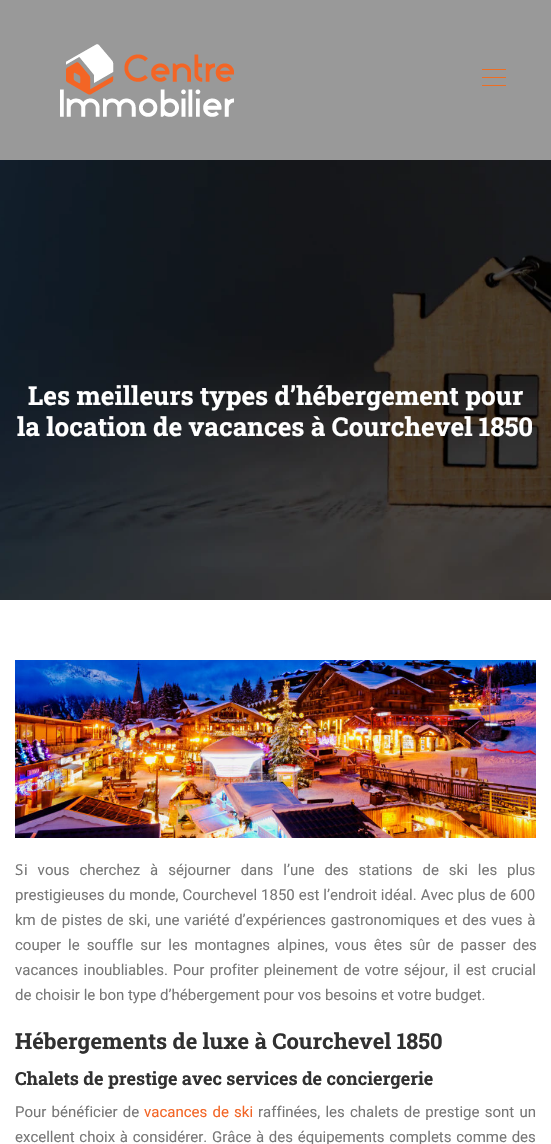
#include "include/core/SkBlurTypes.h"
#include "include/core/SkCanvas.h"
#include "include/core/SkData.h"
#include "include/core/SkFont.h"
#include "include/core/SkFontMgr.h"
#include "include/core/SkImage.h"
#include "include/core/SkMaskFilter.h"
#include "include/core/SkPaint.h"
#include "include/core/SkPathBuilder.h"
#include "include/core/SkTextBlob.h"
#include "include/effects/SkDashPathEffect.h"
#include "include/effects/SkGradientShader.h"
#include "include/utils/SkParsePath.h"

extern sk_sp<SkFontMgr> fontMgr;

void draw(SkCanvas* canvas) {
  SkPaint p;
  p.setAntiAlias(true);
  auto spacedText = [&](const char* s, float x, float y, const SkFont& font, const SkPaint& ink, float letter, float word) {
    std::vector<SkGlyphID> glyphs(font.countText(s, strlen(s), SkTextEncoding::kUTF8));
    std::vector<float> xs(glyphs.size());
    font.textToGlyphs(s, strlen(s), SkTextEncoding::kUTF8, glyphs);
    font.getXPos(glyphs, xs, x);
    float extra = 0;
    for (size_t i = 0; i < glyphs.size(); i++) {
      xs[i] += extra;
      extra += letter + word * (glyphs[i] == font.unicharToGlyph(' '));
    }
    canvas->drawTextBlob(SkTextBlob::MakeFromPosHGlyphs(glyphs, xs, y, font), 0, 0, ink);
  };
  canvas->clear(SK_ColorWHITE);
  p.setColor(SkColorSetRGB(153, 153, 153));
  canvas->drawRect(SkRect::MakeLTRB(0, 0, 551, 160), p);
  canvas->drawImageRect(SkImages::DeferredFromEncodedData(SkData::MakeFromFileName("images/1.png")), SkRect::MakeLTRB(60, 44, 234, 117), SkSamplingOptions());
  p.setColor(SkColorSetRGB(237, 110, 35));
  canvas->drawRect(SkRect::MakeLTRB(482, 69, 506, 70), p);
  canvas->drawRect(SkRect::MakeLTRB(482, 77, 506, 78), p);
  canvas->drawRect(SkRect::MakeLTRB(482, 85, 506, 86), p);
  canvas->drawImageRect(SkImages::DeferredFromEncodedData(SkData::MakeFromFileName("images/2.png")), SkRect::MakeLTRB(0, 160, 551, 600), SkSamplingOptions());
  canvas->drawImageRect(SkImages::DeferredFromEncodedData(SkData::MakeFromFileName("images/3.png")), SkRect::MakeLTRB(15, 660, 536, 838), SkSamplingOptions());
  SkFont font1(fontMgr->matchFamilyStyle("Roboto Slab", SkFontStyle::Bold()), 26);
  font1.setSubpixel(true);
  p.setColor(SK_ColorWHITE);
  canvas->drawString("Les meilleurs types d’hébergement pour", 28, 405, font1, p);
  canvas->drawString("la location de vacances à Courchevel 1850", 17, 436, font1, p);
  SkFont font2(fontMgr->matchFamilyStyle("Noto Sans", SkFontStyle::Normal()), 15);
  font2.setSubpixel(true);
  p.setColor(SkColorSetRGB(119, 119, 119));
  canvas->drawString("S", 15, 875, font2, p);
  SkFont font3(fontMgr->matchFamilyStyle("Roboto", SkFontStyle::Normal()), 15);
  font3.setSubpixel(true);
  spacedText("i vous cherchez à séjourner dans l’une des stations de ski les plus", 24, 875, font3, p, 0, 6.25f);
  spacedText("prestigieuses du monde, Courchevel 1850 est l’endroit idéal. Avec plus de 600", 15, 900, font3, p, 0, 0.25f);
  spacedText("km de pistes de ski, une variété d’expériences gastronomiques et des vues à", 15, 925, font3, p, 0, 1.1f);
  spacedText("couper le souffle sur les montagnes alpines, vous êtes sûr de passer des", 15, 950, font3, p, 0, 3.25f);
  spacedText("vacances inoubliables. Pour profiter pleinement de votre séjour, il est crucial", 15, 975, font3, p, 0, 1.5f);
  canvas->drawString("de choisir le bon type d’hébergement pour vos besoins et votre budget.", 15, 1000, font3, p);
  SkFont font4(fontMgr->matchFamilyStyle("Roboto Slab", SkFontStyle::Bold()), 22);
  font4.setSubpixel(true);
  p.setColor(SkColorSetRGB(49, 49, 49));
  canvas->drawString("Hébergements de luxe à Courchevel 1850", 15, 1049, font4, p);
  SkFont font5(fontMgr->matchFamilyStyle("Roboto Slab", SkFontStyle::Bold()), 18);
  font5.setSubpixel(true);
  canvas->drawString("Chalets de prestige avec services de conciergerie", 15, 1085, font5, p);
  p.setColor(SkColorSetRGB(119, 119, 119));
  spacedText("Pour bénéficier de", 15, 1117, font3, p, 0, 1.5f);
  p.setColor(SkColorSetRGB(243, 101, 37));
  spacedText("vacances de ski", 144, 1117, font3, p, 0, 1.5f);
  p.setColor(SkColorSetRGB(119, 119, 119));
  spacedText("raffinées, les chalets de prestige sont un", 258, 1117, font3, p, 0, 1.5f);
  spacedText("excellent choix à considérer. Grâce à des équipements complets comme des", 15, 1142, font3, p, 0, 1);
}
